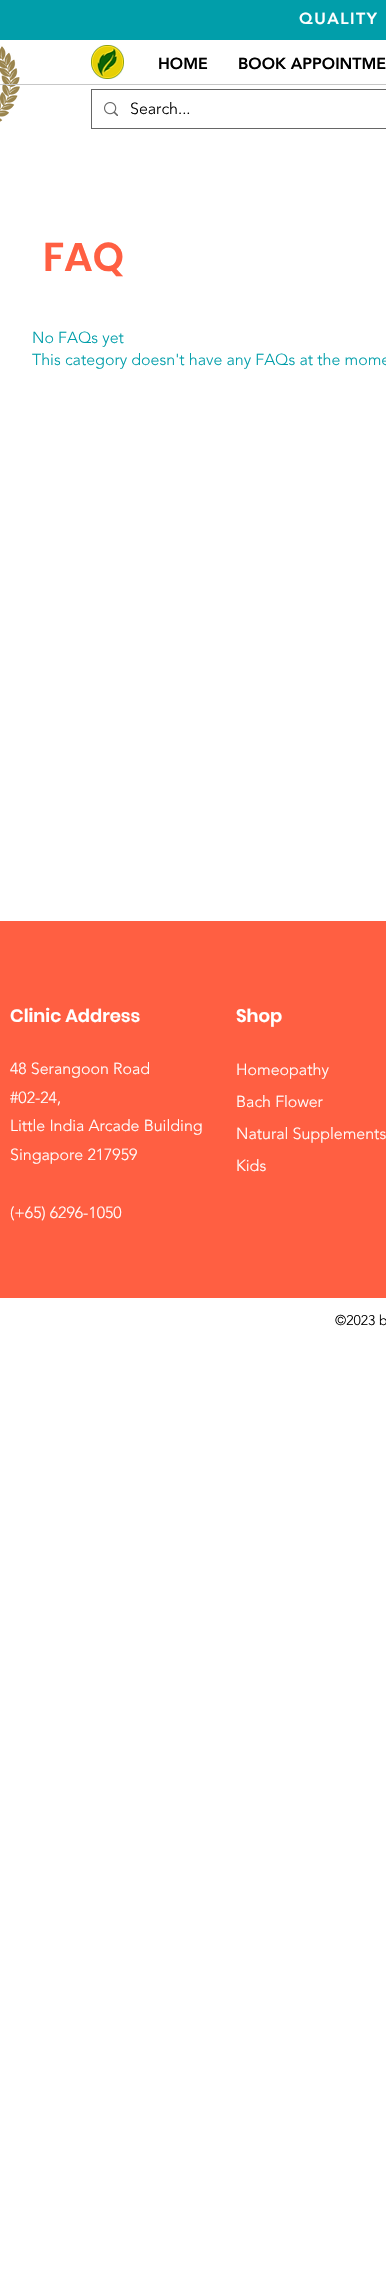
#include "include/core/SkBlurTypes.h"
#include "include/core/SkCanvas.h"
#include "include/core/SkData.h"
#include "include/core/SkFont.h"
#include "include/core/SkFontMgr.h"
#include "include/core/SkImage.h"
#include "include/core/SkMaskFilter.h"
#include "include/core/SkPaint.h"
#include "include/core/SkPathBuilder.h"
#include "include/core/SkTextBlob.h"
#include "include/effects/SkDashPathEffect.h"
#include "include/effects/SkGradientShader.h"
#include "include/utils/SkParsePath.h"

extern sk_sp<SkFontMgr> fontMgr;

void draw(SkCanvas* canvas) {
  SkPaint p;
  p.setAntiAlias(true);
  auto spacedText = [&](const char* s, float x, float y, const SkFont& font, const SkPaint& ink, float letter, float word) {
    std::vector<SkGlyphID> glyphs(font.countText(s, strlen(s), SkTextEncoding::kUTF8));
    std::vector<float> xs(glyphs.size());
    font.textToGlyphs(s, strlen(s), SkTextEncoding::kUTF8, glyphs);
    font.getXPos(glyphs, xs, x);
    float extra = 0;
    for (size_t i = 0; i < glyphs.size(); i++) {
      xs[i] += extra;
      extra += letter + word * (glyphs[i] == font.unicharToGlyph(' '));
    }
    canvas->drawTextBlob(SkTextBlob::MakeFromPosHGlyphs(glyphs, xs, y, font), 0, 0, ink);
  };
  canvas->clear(SK_ColorWHITE);
  p.setColor(SkColorSetRGB(1, 158, 170));
  canvas->drawRect(SkRect::MakeLTRB(0, 0, 386, 40), p);
  canvas->drawImageRect(SkImages::DeferredFromEncodedData(SkData::MakeFromFileName("images/1.png")), SkRect::MakeLTRB(0, 45, 20, 122), SkSamplingOptions());
  canvas->drawImageRect(SkImages::DeferredFromEncodedData(SkData::MakeFromFileName("images/2.png")), SkRect::MakeLTRB(91, 45, 124, 79), SkSamplingOptions());
  p.setColor(SkColorSetRGB(199, 199, 199));
  canvas->drawRect(SkRect::MakeLTRB(0, 84, 386, 85), p);
  p.setStyle(SkPaint::kStroke_Style);
  p.setStrokeWidth(1);
  p.setColor(SkColorSetRGB(102, 102, 102));
  canvas->drawRect(SkRect::MakeLTRB(91.5f, 89.5f, 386.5f, 128.5f), p);
  canvas->drawImageRect(SkImages::DeferredFromEncodedData(SkData::MakeFromFileName("images/3.png")), SkRect::MakeLTRB(104, 102, 118, 116), SkSamplingOptions());
  p.setStyle(SkPaint::kFill_Style);
  p.setColor(SkColorSetRGB(255, 95, 66));
  canvas->drawRect(SkRect::MakeLTRB(0, 921, 386, 1298), p);
  SkFont font1(fontMgr->matchFamilyStyle("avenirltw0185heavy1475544", SkFontStyle(900, SkFontStyle::kNormal_Width, SkFontStyle::kUpright_Slant)), 16);
  font1.setSubpixel(true);
  p.setColor(SK_ColorWHITE);
  spacedText("QUALITY", 299, 24, font1, p, 1.5f, 0);
  p.setColor(SK_ColorBLACK);
  canvas->drawString("HOME", 158, 69, font1, p);
  canvas->drawString("BOOK APPOINTME", 238, 69, font1, p);
  SkFont font2(fontMgr->matchFamilyStyle("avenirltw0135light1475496", SkFontStyle(300, SkFontStyle::kNormal_Width, SkFontStyle::kUpright_Slant)), 16);
  font2.setSubpixel(true);
  canvas->drawString("Search...", 130, 114, font2, p);
  SkFont font3(fontMgr->matchFamilyStyle("Poppins", SkFontStyle(600, SkFontStyle::kNormal_Width, SkFontStyle::kUpright_Slant)), 40);
  font3.setSubpixel(true);
  p.setColor(SkColorSetRGB(255, 95, 66));
  canvas->drawString("FAQ", 43, 271, font3, p);
  p.setColor(SkColorSetRGB(1, 158, 170));
  canvas->drawString("No FAQs yet", 32, 343, font2, p);
  canvas->drawString("This category doesn't have any FAQs at the mome", 32, 365, font2, p);
  SkFont font4(fontMgr->matchFamilyStyle("Poppins", SkFontStyle(600, SkFontStyle::kNormal_Width, SkFontStyle::kUpright_Slant)), 18);
  font4.setSubpixel(true);
  p.setColor(SK_ColorWHITE);
  canvas->drawString("Clinic Address", 10, 1022, font4, p);
  canvas->drawString("48 Serangoon Road", 10, 1074, font2, p);
  canvas->drawString("#02-24,", 10, 1103, font2, p);
  canvas->drawString("Little India Arcade Building", 10, 1131, font2, p);
  canvas->drawString("Singapore 217959", 10, 1160, font2, p);
  canvas->drawString("(+65) 6296-1050", 10, 1218, font2, p);
  canvas->drawString("Shop", 236, 1022, font4, p);
  canvas->drawString("Homeopathy", 236, 1075, font2, p);
  canvas->drawString("Bach Flower", 236, 1107, font2, p);
  canvas->drawString("Natural Supplements", 236, 1139, font2, p);
  canvas->drawString("Kids", 236, 1171, font2, p);
  SkFont font5(fontMgr->matchFamilyStyle("avenirltw0135light1475496", SkFontStyle(300, SkFontStyle::kNormal_Width, SkFontStyle::kUpright_Slant)), 14);
  font5.setSubpixel(true);
  p.setColor(SK_ColorBLACK);
  canvas->drawString("©2023 b", 335, 1325, font5, p);
}
